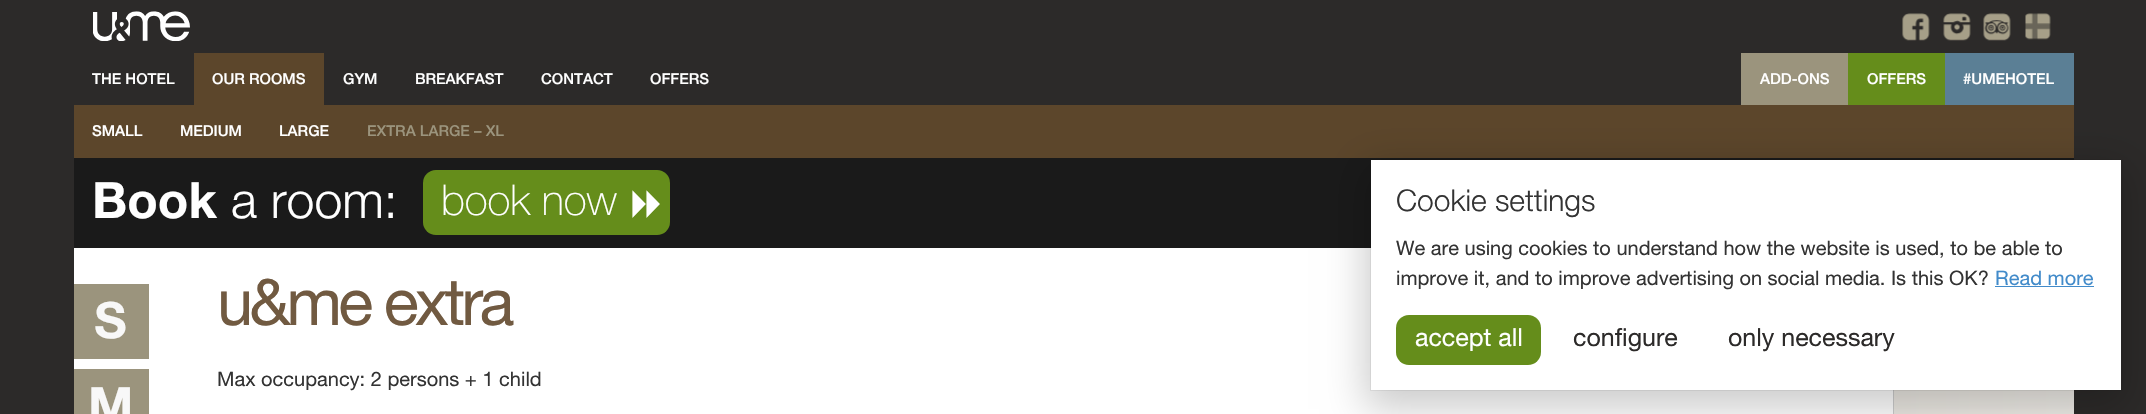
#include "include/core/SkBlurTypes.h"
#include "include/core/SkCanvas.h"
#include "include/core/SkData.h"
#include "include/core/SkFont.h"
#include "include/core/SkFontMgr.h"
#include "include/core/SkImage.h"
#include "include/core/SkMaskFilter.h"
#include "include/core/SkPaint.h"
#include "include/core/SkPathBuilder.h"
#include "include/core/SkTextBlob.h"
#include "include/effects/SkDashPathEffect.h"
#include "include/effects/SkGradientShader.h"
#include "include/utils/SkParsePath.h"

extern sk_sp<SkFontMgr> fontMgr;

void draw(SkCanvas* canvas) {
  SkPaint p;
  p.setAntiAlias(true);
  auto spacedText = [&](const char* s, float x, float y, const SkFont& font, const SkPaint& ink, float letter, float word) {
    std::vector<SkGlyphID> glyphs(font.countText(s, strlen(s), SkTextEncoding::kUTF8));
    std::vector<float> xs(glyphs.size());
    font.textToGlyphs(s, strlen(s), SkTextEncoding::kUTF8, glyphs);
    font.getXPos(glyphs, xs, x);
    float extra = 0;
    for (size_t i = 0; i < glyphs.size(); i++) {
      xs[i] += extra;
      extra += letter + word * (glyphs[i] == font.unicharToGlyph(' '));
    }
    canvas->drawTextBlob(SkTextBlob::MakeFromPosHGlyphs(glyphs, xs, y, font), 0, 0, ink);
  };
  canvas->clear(SkColorSetRGB(44, 42, 41));
  canvas->drawImageRect(SkImages::DeferredFromEncodedData(SkData::MakeFromFileName("images/1.png")), SkRect::MakeLTRB(93, 11, 190, 41), SkSamplingOptions());
  canvas->drawImageRect(SkImages::DeferredFromEncodedData(SkData::MakeFromFileName("images/2.png")), SkRect::MakeLTRB(1902, 13, 1930, 41), SkSamplingOptions());
  canvas->drawImageRect(SkImages::DeferredFromEncodedData(SkData::MakeFromFileName("images/3.png")), SkRect::MakeLTRB(1943, 13, 1971, 41), SkSamplingOptions());
  canvas->drawImageRect(SkImages::DeferredFromEncodedData(SkData::MakeFromFileName("images/4.png")), SkRect::MakeLTRB(1983, 13, 2011, 41), SkSamplingOptions());
  canvas->drawImageRect(SkImages::DeferredFromEncodedData(SkData::MakeFromFileName("images/5.png")), SkRect::MakeLTRB(2025, 13, 2051, 40), SkSamplingOptions());
  p.setColor(SkColorSetRGB(92, 70, 43));
  canvas->drawRect(SkRect::MakeLTRB(194, 53, 324, 105), p);
  canvas->drawRect(SkRect::MakeLTRB(74, 105, 2074, 158), p);
  p.setColor(SkColorSetRGB(155, 148, 125));
  canvas->drawRect(SkRect::MakeLTRB(1741, 53, 1848, 105), p);
  p.setColor(SkColorSetRGB(101, 141, 27));
  canvas->drawRect(SkRect::MakeLTRB(1848, 53, 1945, 105), p);
  p.setColor(SkColorSetRGB(91, 127, 149));
  canvas->drawRect(SkRect::MakeLTRB(1945, 53, 2074, 105), p);
  p.setColor(SkColorSetRGB(26, 26, 26));
  canvas->drawRect(SkRect::MakeLTRB(74, 158, 2074, 248), p);
  p.setColor(SkColorSetRGB(101, 141, 27));
  canvas->drawRoundRect(SkRect::MakeLTRB(423, 170, 670, 235), 13, 13, p);
  canvas->drawImageRect(SkImages::DeferredFromEncodedData(SkData::MakeFromFileName("images/6.png")), SkRect::MakeLTRB(632, 190, 660, 218), SkSamplingOptions());
  p.setColor(SK_ColorWHITE);
  canvas->drawRect(SkRect::MakeLTRB(74, 248, 1893, 414), p);
  p.setColor(SkColorSetRGB(155, 148, 125));
  canvas->drawRect(SkRect::MakeLTRB(74, 284, 149, 359), p);
  canvas->drawRect(SkRect::MakeLTRB(74, 369, 149, 414), p);
  {
    const SkColor colors[] = {SkColorSetRGB(235, 232, 226), SK_ColorWHITE};
    const float stops[] = {0, 0.5f};
    const SkPoint ends[] = {{1894, 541}, {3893, 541}};
    p.setShader(SkGradientShader::MakeLinear(ends, colors, stops, 2, SkTileMode::kClamp));
    p.setAlpha(255);
  }
  canvas->drawRect(SkRect::MakeLTRB(1894, 390, 2074, 414), p);
  p.setShader(nullptr);
  p.setColor(SkColorSetRGB(204, 204, 204));
  canvas->drawRect(SkRect::MakeLTRB(1893, 390, 1894, 414), p);
  p.setStyle(SkPaint::kStroke_Style);
  p.setStrokeWidth(1);
  p.setColor(SkColorSetARGB(15, 0, 0, 0));
  canvas->drawRect(SkRect::MakeLTRB(1370.5f, 159.5f, 2122.5f, 390.5f), p);
  p.setStyle(SkPaint::kFill_Style);
  p.setColor(SkColorSetARGB(51, 0, 0, 0));
  p.setMaskFilter(SkMaskFilter::MakeBlur(kNormal_SkBlurStyle, 19));
  canvas->drawRect(SkRect::MakeLTRB(1365, 166, 2128, 409), p);
  p.setMaskFilter(nullptr);
  p.setColor(SK_ColorWHITE);
  canvas->drawRect(SkRect::MakeLTRB(1371, 160, 2121, 390), p);
  p.setColor(SkColorSetRGB(66, 139, 202));
  canvas->drawRect(SkRect::MakeLTRB(1995, 286, 2094, 287), p);
  p.setColor(SkColorSetRGB(101, 141, 27));
  canvas->drawRoundRect(SkRect::MakeLTRB(1396, 315, 1541, 365), 13, 13, p);
  SkFont font1(fontMgr->matchFamilyStyle("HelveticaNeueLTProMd", SkFontStyle(500, SkFontStyle::kNormal_Width, SkFontStyle::kUpright_Slant)), 15);
  font1.setSubpixel(true);
  p.setColor(SK_ColorWHITE);
  canvas->drawString("THE HOTEL", 92, 84, font1, p);
  canvas->drawString("OUR ROOMS", 212, 84, font1, p);
  canvas->drawString("SMALL", 92, 136, font1, p);
  canvas->drawString("MEDIUM", 180, 136, font1, p);
  canvas->drawString("LARGE", 279, 136, font1, p);
  p.setColor(SkColorSetRGB(155, 148, 125));
  canvas->drawString("EXTRA LARGE – XL", 367, 136, font1, p);
  p.setColor(SK_ColorWHITE);
  canvas->drawString("GYM", 343, 84, font1, p);
  canvas->drawString("BREAKFAST", 415, 84, font1, p);
  canvas->drawString("CONTACT", 541, 84, font1, p);
  canvas->drawString("OFFERS", 650, 84, font1, p);
  canvas->drawString("ADD-ONS", 1760, 84, font1, p);
  canvas->drawString("OFFERS", 1867, 84, font1, p);
  canvas->drawString("#UMEHOTEL", 1963, 84, font1, p);
  SkFont font2(fontMgr->matchFamilyStyle("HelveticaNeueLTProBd", SkFontStyle::Bold()), 50);
  font2.setSubpixel(true);
  canvas->drawString("Book", 92, 218, font2, p);
  SkFont font3(fontMgr->matchFamilyStyle("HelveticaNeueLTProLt", SkFontStyle(300, SkFontStyle::kNormal_Width, SkFontStyle::kUpright_Slant)), 50);
  font3.setSubpixel(true);
  canvas->drawString("a room:", 231, 218, font3, p);
  SkFont font4(fontMgr->matchFamilyStyle("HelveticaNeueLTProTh", SkFontStyle::Normal()), 42.5f);
  font4.setSubpixel(true);
  canvas->drawString("book now", 441, 215, font4, p);
  p.setColor(SkColorSetRGB(248, 248, 248));
  canvas->drawString("S", 94, 338, font2, p);
  canvas->drawString("M", 88, 423, font2, p);
  SkFont font5(fontMgr->matchFamilyStyle("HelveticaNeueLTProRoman", SkFontStyle::Normal()), 65);
  font5.setSubpixel(true);
  p.setColor(SkColorSetRGB(113, 90, 65));
  spacedText("u&me extra", 217, 325, font5, p, -3.75f, 0);
  SkFont font6(fontMgr->matchFamilyStyle("HelveticaNeueLTProRoman", SkFontStyle::Normal()), 20);
  font6.setSubpixel(true);
  p.setColor(SkColorSetRGB(51, 51, 51));
  canvas->drawString("Max occupancy: 2 persons + 1 child", 217, 386, font6, p);
  SkFont font7(fontMgr->matchFamilyStyle("HelveticaNeueLTProLt", SkFontStyle(300, SkFontStyle::kNormal_Width, SkFontStyle::kUpright_Slant)), 30);
  font7.setSubpixel(true);
  canvas->drawString("Cookie settings", 1396, 211, font7, p);
  canvas->drawString("We are using cookies to understand how the website is used, to be able to", 1396, 255, font6, p);
  canvas->drawString("improve it, and to improve advertising on social media. Is this OK?", 1396, 285, font6, p);
  p.setColor(SkColorSetRGB(66, 139, 202));
  canvas->drawString("Read more", 1995, 285, font6, p);
  SkFont font8(fontMgr->matchFamilyStyle("HelveticaNeueLTProRoman", SkFontStyle::Normal()), 25);
  font8.setSubpixel(true);
  p.setColor(SK_ColorWHITE);
  canvas->drawString("accept all", 1415, 346, font8, p);
  p.setColor(SkColorSetRGB(44, 42, 41));
  canvas->drawString("configure", 1573, 346, font8, p);
  canvas->drawString("only necessary", 1728, 346, font8, p);
}
